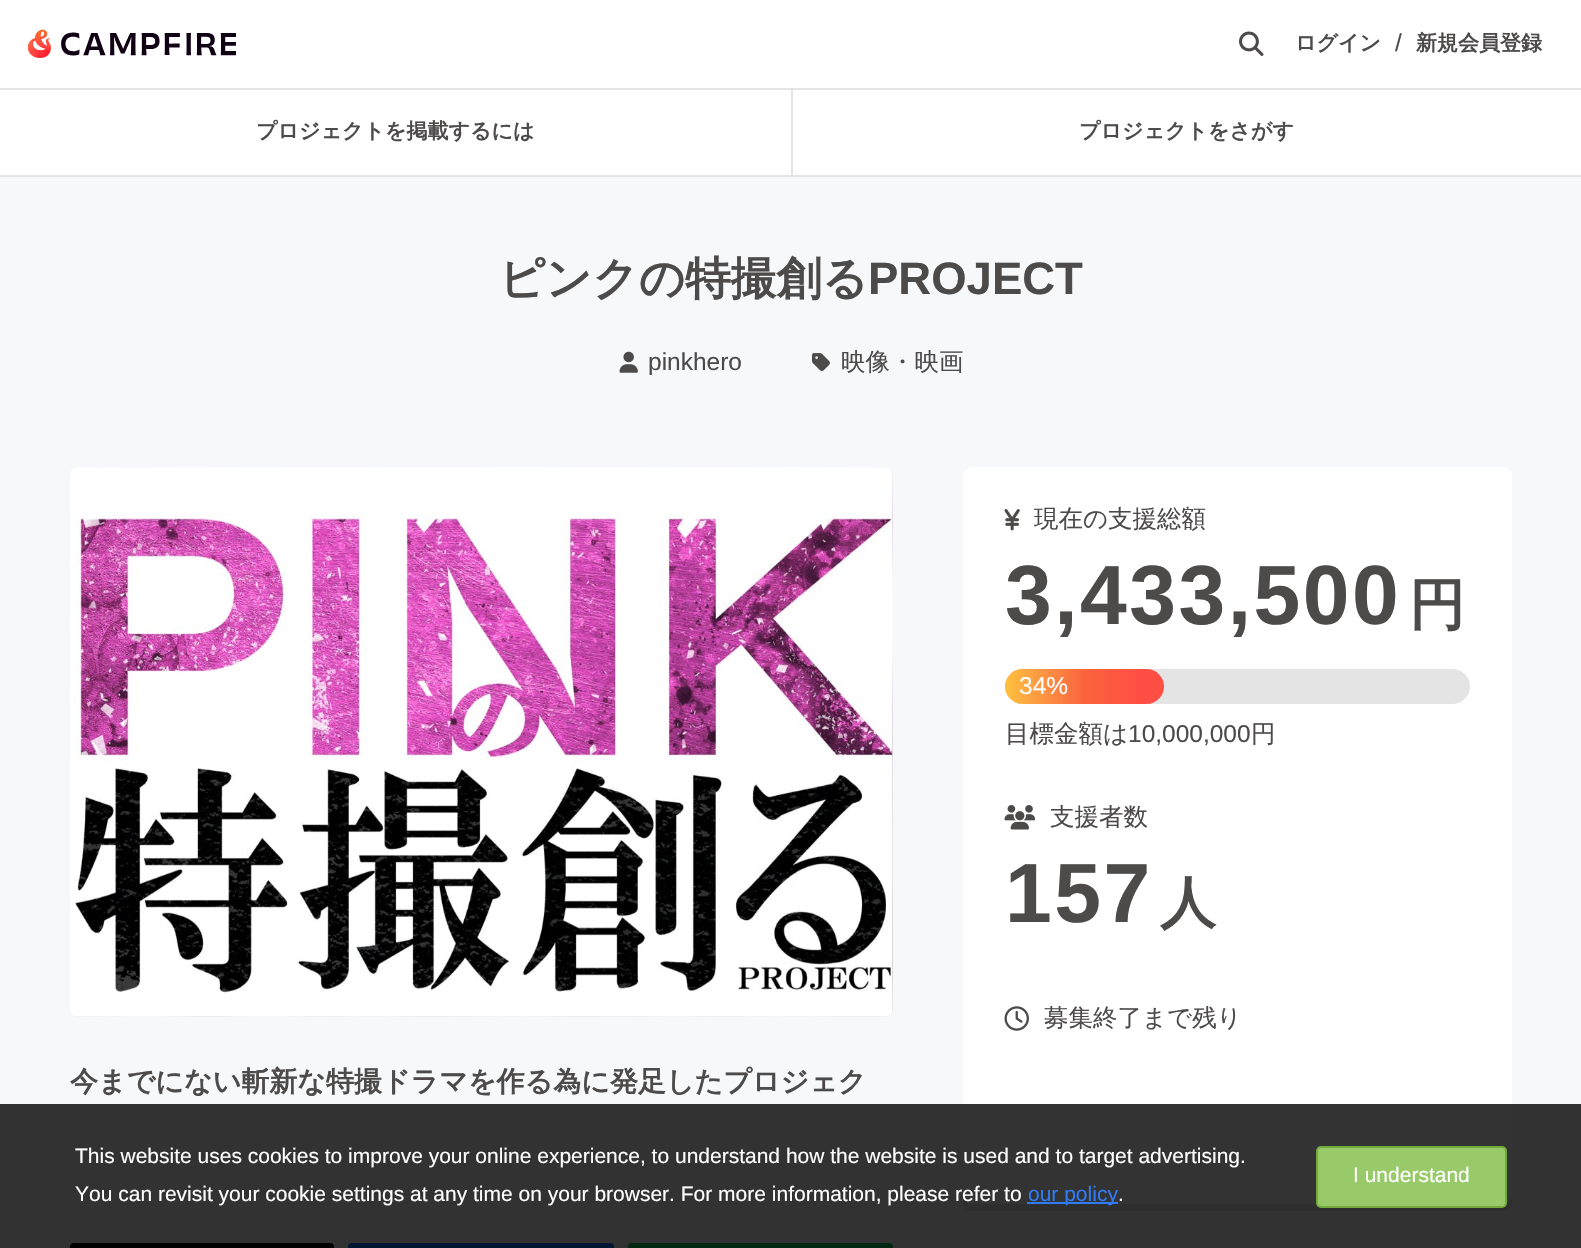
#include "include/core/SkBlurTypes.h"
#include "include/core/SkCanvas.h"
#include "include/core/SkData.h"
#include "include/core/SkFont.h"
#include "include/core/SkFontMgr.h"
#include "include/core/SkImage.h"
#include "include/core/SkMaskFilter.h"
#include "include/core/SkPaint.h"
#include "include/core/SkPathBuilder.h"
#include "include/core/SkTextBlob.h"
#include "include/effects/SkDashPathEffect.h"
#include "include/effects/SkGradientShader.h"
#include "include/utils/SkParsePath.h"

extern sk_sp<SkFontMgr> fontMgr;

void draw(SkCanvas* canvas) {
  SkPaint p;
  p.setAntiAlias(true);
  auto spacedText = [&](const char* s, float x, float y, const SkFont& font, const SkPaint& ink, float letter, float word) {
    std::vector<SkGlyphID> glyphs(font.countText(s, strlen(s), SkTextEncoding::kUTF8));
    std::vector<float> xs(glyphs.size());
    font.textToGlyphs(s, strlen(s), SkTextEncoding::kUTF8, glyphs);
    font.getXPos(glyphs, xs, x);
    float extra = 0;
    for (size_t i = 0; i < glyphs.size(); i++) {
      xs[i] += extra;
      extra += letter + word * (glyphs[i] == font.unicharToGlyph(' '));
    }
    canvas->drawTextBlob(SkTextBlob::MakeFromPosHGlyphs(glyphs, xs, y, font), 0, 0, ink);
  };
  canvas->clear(SK_ColorWHITE);
  canvas->drawImageRect(SkImages::DeferredFromEncodedData(SkData::MakeFromFileName("images/1.png")), SkRect::MakeLTRB(27, 29, 236, 58), SkSamplingOptions());
  canvas->drawImageRect(SkImages::DeferredFromEncodedData(SkData::MakeFromFileName("images/2.png")), SkRect::MakeLTRB(1239, 31, 1264, 56), SkSamplingOptions());
  p.setColor(SkColorSetRGB(228, 228, 228));
  canvas->drawRect(SkRect::MakeLTRB(0, 175, 1581, 177), p);
  canvas->drawRect(SkRect::MakeLTRB(0, 88, 1581, 90), p);
  canvas->drawRect(SkRect::MakeLTRB(791, 88, 793, 175), p);
  p.setColor(SkColorSetRGB(246, 248, 250));
  canvas->drawRect(SkRect::MakeLTRB(0, 177, 1581, 1248), p);
  canvas->drawImageRect(SkImages::DeferredFromEncodedData(SkData::MakeFromFileName("images/3.png")), SkRect::MakeLTRB(619, 351, 638, 373), SkSamplingOptions());
  canvas->drawImageRect(SkImages::DeferredFromEncodedData(SkData::MakeFromFileName("images/4.png")), SkRect::MakeLTRB(812, 353, 830, 371), SkSamplingOptions());
  p.setColor(SkColorSetRGB(228, 228, 228));
  canvas->drawPath(SkPathBuilder().moveTo(963, 1198).lineTo(963, 1202).cubicTo(963, 1207, 967, 1211, 972, 1211).lineTo(1503, 1211).cubicTo(1508, 1211, 1512, 1207, 1512, 1202).lineTo(1512, 1195).cubicTo(1512, 1200, 1508, 1204, 1503, 1204).lineTo(971, 1204).cubicTo(967, 1204, 964, 1202, 963, 1198).close().detach(), p);
  p.setColor(SK_ColorWHITE);
  canvas->drawRoundRect(SkRect::MakeLTRB(963, 467, 1512, 1204), 9, 9, p);
  canvas->drawImageRect(SkImages::DeferredFromEncodedData(SkData::MakeFromFileName("images/5.png")), SkRect::MakeLTRB(1004, 509, 1020, 531), SkSamplingOptions());
  p.setColor(SkColorSetRGB(228, 228, 228));
  canvas->drawRoundRect(SkRect::MakeLTRB(1005, 669, 1470, 704), 17.5f, 17.5f, p);
  {
    const SkColor colors[] = {SkColorSetRGB(255, 79, 69), SkColorSetRGB(255, 79, 69), SkColorSetRGB(250, 100, 60), SkColorSetRGB(251, 137, 67), SkColorSetRGB(255, 193, 62)};
    const float stops[] = {0, 0.17f, 0.5f, 0.7f, 1};
    const SkPoint ends[] = {{1164, 686}, {1005, 686}};
    p.setShader(SkGradientShader::MakeLinear(ends, colors, stops, 5, SkTileMode::kClamp));
    p.setAlpha(255);
  }
  canvas->drawRoundRect(SkRect::MakeLTRB(1005, 669, 1164, 704), 17.5f, 17.5f, p);
  canvas->drawImageRect(SkImages::DeferredFromEncodedData(SkData::MakeFromFileName("images/6.png")), SkRect::MakeLTRB(1004, 805, 1036, 830), SkSamplingOptions());
  canvas->drawImageRect(SkImages::DeferredFromEncodedData(SkData::MakeFromFileName("images/7.png")), SkRect::MakeLTRB(1004, 1006, 1029, 1031), SkSamplingOptions());
  canvas->drawImageRect(SkImages::DeferredFromEncodedData(SkData::MakeFromFileName("images/8.png")), SkRect::MakeLTRB(70, 467, 893, 1017), SkSamplingOptions());
  canvas->drawImageRect(SkImages::DeferredFromEncodedData(SkData::MakeFromFileName("images/9.png")), SkRect::MakeLTRB(70, 467, 893, 1017), SkSamplingOptions());
  p.setShader(nullptr);
  p.setColor(SK_ColorBLACK);
  canvas->drawRoundRect(SkRect::MakeLTRB(70, 1243, 334, 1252), 4, 4, p);
  p.setColor(SkColorSetRGB(8, 102, 255));
  canvas->drawRoundRect(SkRect::MakeLTRB(348, 1243, 614, 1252), 4, 4, p);
  p.setColor(SkColorSetRGB(6, 199, 85));
  canvas->drawRoundRect(SkRect::MakeLTRB(628, 1243, 893, 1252), 4, 4, p);
  p.setColor(SkColorSetARGB(204, 0, 0, 0));
  canvas->drawRect(SkRect::MakeLTRB(0, 1104, 1581, 1248), p);
  p.setColor(SkColorSetRGB(48, 123, 246));
  canvas->drawRect(SkRect::MakeLTRB(1027, 1202, 1118, 1204), p);
  p.setColor(SkColorSetRGB(152, 202, 105));
  canvas->drawRoundRect(SkRect::MakeLTRB(1317, 1147, 1506, 1207), 4, 4, p);
  p.setStyle(SkPaint::kStroke_Style);
  p.setStrokeWidth(2);
  p.setColor(SkColorSetRGB(114, 170, 60));
  canvas->drawRoundRect(SkRect::MakeLTRB(1317, 1147, 1506, 1207), 4, 4, p);
  SkFont font1(fontMgr->matchFamilyStyle("WenQuanYi Zen Hei", SkFontStyle::Bold()), 21);
  font1.setSubpixel(true);
  p.setStyle(SkPaint::kFill_Style);
  p.setColor(SkColorSetRGB(77, 74, 74));
  canvas->drawString("ログイン", 1295, 50, font1, p);
  SkFont font2(fontMgr->matchFamilyStyle("Liberation Sans", SkFontStyle::Normal()), 24.5f);
  font2.setSubpixel(true);
  canvas->drawString("/", 1395, 51, font2, p);
  canvas->drawString("新規会員登録", 1416, 50, font1, p);
  canvas->drawString("プロジェクトを掲載するには", 256, 138, font1, p);
  canvas->drawString("プロジェクトをさがす", 1079, 138, font1, p);
  SkFont font3(fontMgr->matchFamilyStyle("WenQuanYi Zen Hei", SkFontStyle::Bold()), 45.5f);
  font3.setSubpixel(true);
  canvas->drawString("ピンクの特撮創る", 499, 294, font3, p);
  SkFont font4(fontMgr->matchFamilyStyle("Liberation Sans", SkFontStyle::Bold()), 45.5f);
  font4.setSubpixel(true);
  canvas->drawString("PROJECT", 868, 294, font4, p);
  canvas->drawString("pinkhero", 648, 370, font2, p);
  SkFont font5(fontMgr->matchFamilyStyle("WenQuanYi Zen Hei", SkFontStyle(500, SkFontStyle::kNormal_Width, SkFontStyle::kUpright_Slant)), 24.5f);
  font5.setSubpixel(true);
  canvas->drawString("映像・映画", 841, 370, font5, p);
  canvas->drawString("現在の支援総額", 1034, 527, font5, p);
  SkFont font6(fontMgr->matchFamilyStyle("Liberation Sans", SkFontStyle::Bold()), 84);
  font6.setSubpixel(true);
  spacedText("3,433,500", 1005, 624, font6, p, 2.5f, 0);
  SkFont font7(fontMgr->matchFamilyStyle("WenQuanYi Zen Hei", SkFontStyle::Bold()), 56);
  font7.setSubpixel(true);
  spacedText("円", 1409, 624, font7, p, 2.5f, 0);
  p.setColor(SK_ColorWHITE);
  canvas->drawString("34%", 1019, 694, font2, p);
  p.setColor(SkColorSetRGB(77, 74, 74));
  canvas->drawString("目標金額は", 1005, 742, font5, p);
  canvas->drawString("10,000,000", 1128, 742, font2, p);
  canvas->drawString("円", 1251, 742, font5, p);
  canvas->drawString("支援者数", 1050, 825, font5, p);
  spacedText("157", 1005, 922, font6, p, 2.5f, 0);
  spacedText("人", 1160, 922, font7, p, 2.5f, 0);
  canvas->drawString("募集終了まで残り", 1044, 1026, font5, p);
  SkFont font8(fontMgr->matchFamilyStyle("WenQuanYi Zen Hei", SkFontStyle::Bold()), 28);
  font8.setSubpixel(true);
  canvas->drawString("今までにない斬新な特撮ドラマを作る為に発足したプロジェク", 70, 1091, font8, p);
  SkFont font9(fontMgr->matchFamilyStyle("Liberation Sans", SkFontStyle::Normal()), 21);
  font9.setSubpixel(true);
  p.setColor(SK_ColorWHITE);
  canvas->drawString("This website uses cookies to improve your online experience, to understand how the website is used and to target advertising.", 75, 1163, font9, p);
  canvas->drawString("You can revisit your cookie settings at any time on your browser. For more information, please refer to", 75, 1201, font9, p);
  p.setColor(SkColorSetRGB(48, 123, 246));
  canvas->drawString("our policy", 1028, 1201, font9, p);
  p.setColor(SK_ColorWHITE);
  canvas->drawString(".", 1118, 1201, font9, p);
  canvas->drawString("I understand", 1353, 1182, font9, p);
}
